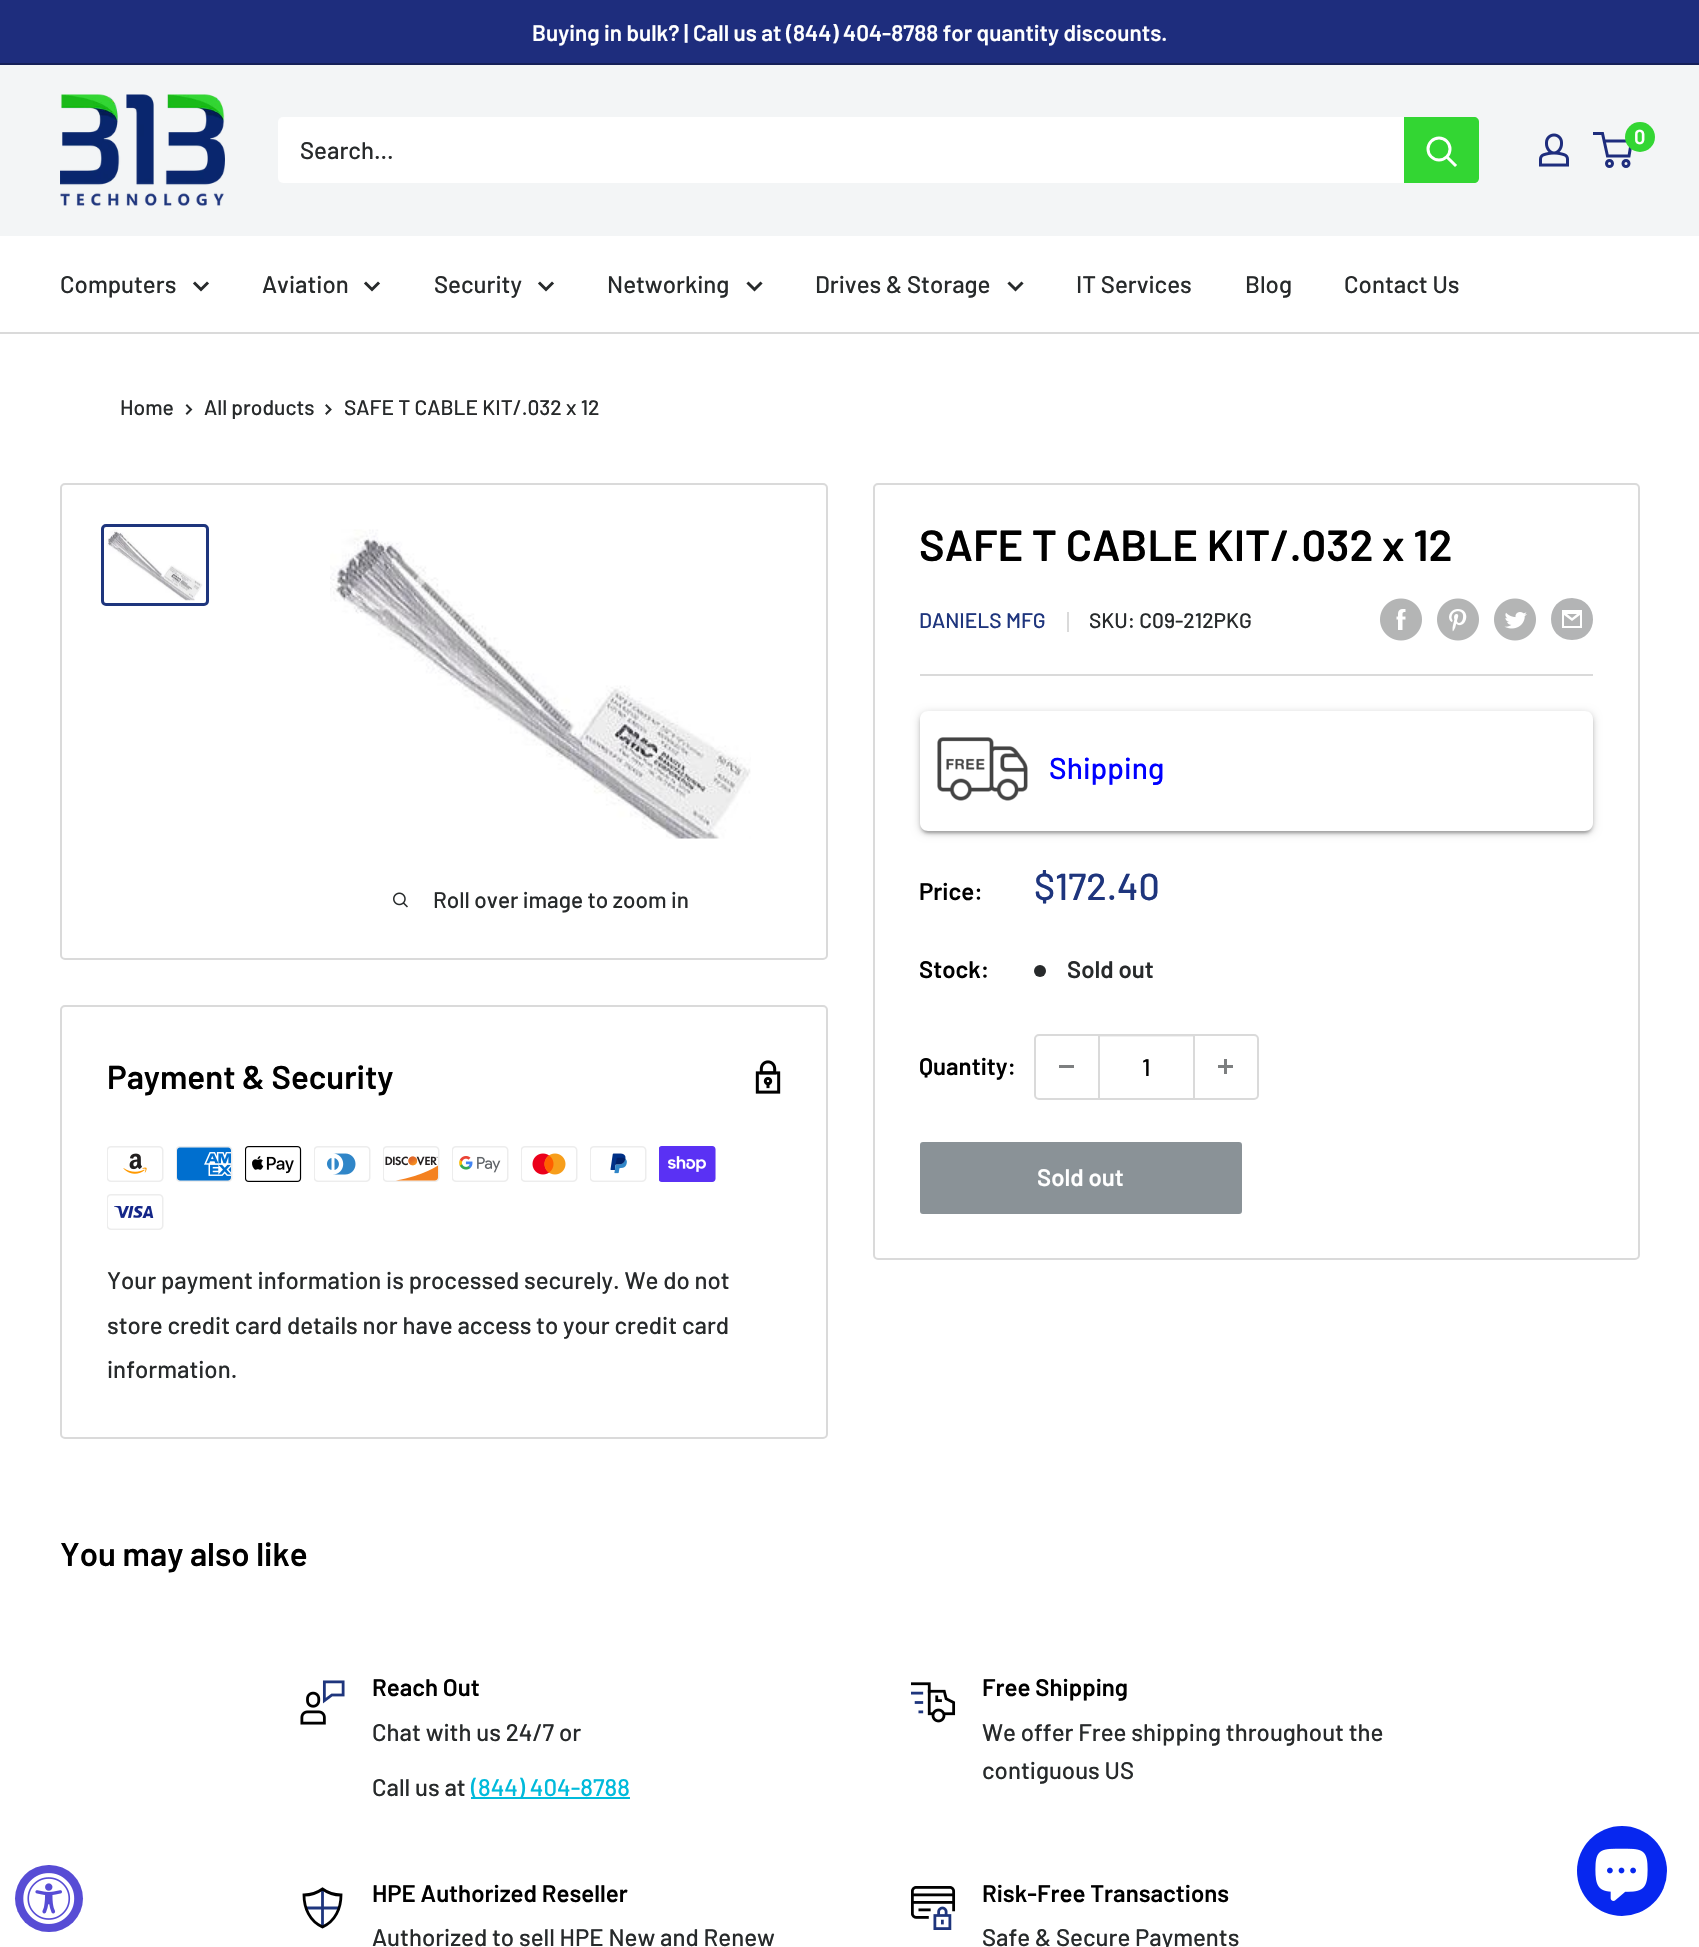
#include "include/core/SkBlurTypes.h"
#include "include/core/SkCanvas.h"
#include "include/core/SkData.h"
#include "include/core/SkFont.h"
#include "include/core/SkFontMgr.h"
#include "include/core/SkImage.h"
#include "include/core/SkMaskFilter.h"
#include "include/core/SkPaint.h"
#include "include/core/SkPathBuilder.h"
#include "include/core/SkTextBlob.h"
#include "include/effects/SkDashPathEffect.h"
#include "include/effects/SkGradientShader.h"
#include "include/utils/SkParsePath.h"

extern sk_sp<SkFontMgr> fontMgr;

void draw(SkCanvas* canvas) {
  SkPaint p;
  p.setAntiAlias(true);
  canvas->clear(SK_ColorWHITE);
  p.setColor(SkColorSetRGB(30, 45, 125));
  canvas->drawRect(SkRect::MakeLTRB(0, 0, 1699, 63), p);
  p.setColor(SkColorSetRGB(21, 32, 88));
  canvas->drawRect(SkRect::MakeLTRB(0, 63, 1699, 65), p);
  p.setColor(SkColorSetRGB(243, 245, 246));
  canvas->drawRect(SkRect::MakeLTRB(0, 65, 1699, 236), p);
  canvas->drawImageRect(SkImages::DeferredFromEncodedData(SkData::MakeFromFileName("images/1.png")), SkRect::MakeLTRB(60, 94, 225, 206), SkSamplingOptions());
  canvas->drawImageRect(SkImages::DeferredFromEncodedData(SkData::MakeFromFileName("images/2.png")), SkRect::MakeLTRB(1539, 133, 1569, 167), SkSamplingOptions());
  p.setStyle(SkPaint::kStroke_Style);
  p.setStrokeWidth(3);
  p.setColor(SkColorSetRGB(30, 45, 125));
  canvas->drawCircle(1609.5f, 163.5f, 3, p);
  canvas->drawCircle(1626, 163.5f, 3, p);
  canvas->drawPath(SkPathBuilder().moveTo(1604, 141).lineTo(1631.5f, 141).lineTo(1629, 156).lineTo(1607.5f, 156).lineTo(1602.5f, 133.5f).lineTo(1593, 133.5f).detach(), p);
  p.setStyle(SkPaint::kFill_Style);
  p.setColor(SkColorSetRGB(51, 214, 51));
  canvas->drawCircle(1640, 137, 15, p);
  p.setColor(SK_ColorWHITE);
  canvas->drawRoundRect(SkRect::MakeLTRB(278, 117, 1479, 183), 5, 5, p);
  p.setColor(SkColorSetRGB(51, 214, 51));
  canvas->drawPath(SkPathBuilder().moveTo(1404, 117).lineTo(1474, 117).cubicTo(1477, 117, 1479, 119, 1479, 122).lineTo(1479, 178).cubicTo(1479, 181, 1477, 183, 1474, 183).lineTo(1404, 183).close().detach(), p);
  p.setStyle(SkPaint::kStroke_Style);
  p.setStrokeCap(SkPaint::kSquare_Cap);
  p.setColor(SK_ColorWHITE);
  canvas->drawPath(SkPathBuilder().moveTo(1455, 165).lineTo(1447.5f, 157.5f).detach(), p);
  p.setStrokeCap(SkPaint::kButt_Cap);
  canvas->drawCircle(1439, 149, 11, p);
  p.setStyle(SkPaint::kFill_Style);
  p.setColor(SkColorSetRGB(218, 218, 218));
  canvas->drawRect(SkRect::MakeLTRB(0, 332, 1699, 334), p);
  p.setStyle(SkPaint::kStroke_Style);
  p.setStrokeCap(SkPaint::kSquare_Cap);
  p.setColor(SkColorSetRGB(39, 42, 43));
  canvas->drawPath(SkPathBuilder().moveTo(207, 283.5f).lineTo(201, 289.5f).lineTo(195, 283.5f).detach(), p);
  canvas->drawPath(SkPathBuilder().moveTo(378, 283.5f).lineTo(372, 289.5f).lineTo(366, 283.5f).detach(), p);
  canvas->drawPath(SkPathBuilder().moveTo(552, 283.5f).lineTo(546, 289.5f).lineTo(540, 283.5f).detach(), p);
  canvas->drawPath(SkPathBuilder().moveTo(760.5f, 283.5f).lineTo(754.5f, 289.5f).lineTo(748.5f, 283.5f).detach(), p);
  canvas->drawPath(SkPathBuilder().moveTo(1021.5f, 283.5f).lineTo(1015.5f, 289.5f).lineTo(1009.5f, 283.5f).detach(), p);
  p.setStrokeWidth(2);
  canvas->drawPath(SkPathBuilder().moveTo(187, 405.5f).lineTo(191, 409.5f).lineTo(187, 413.5f).detach(), p);
  canvas->drawPath(SkPathBuilder().moveTo(326.5f, 405.5f).lineTo(330.5f, 409.5f).lineTo(326.5f, 413.5f).detach(), p);
  p.setStrokeCap(SkPaint::kButt_Cap);
  p.setColor(SkColorSetRGB(218, 218, 218));
  canvas->drawRoundRect(SkRect::MakeLTRB(61, 484, 827, 959), 4, 4, p);
  p.setStrokeWidth(3);
  p.setColor(SkColorSetRGB(30, 53, 125));
  canvas->drawRoundRect(SkRect::MakeLTRB(102.5f, 525.5f, 207.5f, 604.5f), 3.5f, 3.5f, p);
  canvas->drawImageRect(SkImages::DeferredFromEncodedData(SkData::MakeFromFileName("images/3.png")), SkRect::MakeLTRB(106, 529, 203, 601), SkSamplingOptions());
  canvas->drawImageRect(SkImages::DeferredFromEncodedData(SkData::MakeFromFileName("images/4.png")), SkRect::MakeLTRB(330, 529, 751, 839), SkSamplingOptions());
  canvas->drawImageRect(SkImages::DeferredFromEncodedData(SkData::MakeFromFileName("images/5.png")), SkRect::MakeLTRB(393, 892, 408, 908), SkSamplingOptions());
  p.setStrokeWidth(2);
  p.setColor(SkColorSetRGB(218, 218, 218));
  canvas->drawRoundRect(SkRect::MakeLTRB(874, 484, 1639, 1259), 4, 4, p);
  p.setStyle(SkPaint::kFill_Style);
  canvas->drawRect(SkRect::MakeLTRB(1067, 612, 1069, 632), p);
  canvas->drawImageRect(SkImages::DeferredFromEncodedData(SkData::MakeFromFileName("images/6.png")), SkRect::MakeLTRB(1380, 598, 1422, 641), SkSamplingOptions());
  canvas->drawImageRect(SkImages::DeferredFromEncodedData(SkData::MakeFromFileName("images/7.png")), SkRect::MakeLTRB(1437, 598, 1479, 641), SkSamplingOptions());
  canvas->drawImageRect(SkImages::DeferredFromEncodedData(SkData::MakeFromFileName("images/8.png")), SkRect::MakeLTRB(1494, 598, 1536, 641), SkSamplingOptions());
  p.setColor(SkColorSetRGB(179, 180, 181));
  canvas->drawPath(SkPathBuilder().moveTo(1572, 640).cubicTo(1544, 640, 1544, 598, 1572, 598).cubicTo(1600, 599, 1600, 640, 1572, 640).close().moveTo(1567, 614).lineTo(1577, 614).lineTo(1572, 618).close().moveTo(1580, 615).lineTo(1580, 626).lineTo(1564, 626).lineTo(1564, 615).lineTo(1572, 621).close().moveTo(1582, 610).lineTo(1562, 610).lineTo(1562, 628).lineTo(1582, 628).close().detach(), p);
  p.setColor(SkColorSetRGB(218, 218, 218));
  canvas->drawRect(SkRect::MakeLTRB(920, 674, 1593, 676), p);
  canvas->save();
  canvas->clipPath(SkPathBuilder(SkPathFillType::kEvenOdd).moveTo(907, 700).lineTo(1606, 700).lineTo(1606, 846).lineTo(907, 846).close().moveTo(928, 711).lineTo(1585, 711).cubicTo(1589.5f, 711, 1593, 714.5f, 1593, 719).lineTo(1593, 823).cubicTo(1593, 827.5f, 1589.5f, 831, 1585, 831).lineTo(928, 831).cubicTo(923.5f, 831, 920, 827.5f, 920, 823).lineTo(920, 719).cubicTo(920, 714.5f, 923.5f, 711, 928, 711).close().detach(), true);
  p.setColor(SkColorSetARGB(51, 0, 0, 0));
  p.setMaskFilter(SkMaskFilter::MakeBlur(kNormal_SkBlurStyle, 4));
  canvas->drawRoundRect(SkRect::MakeLTRB(920, 713, 1593, 833), 8, 8, p);
  p.setMaskFilter(nullptr);
  canvas->restore();
  canvas->save();
  canvas->clipPath(SkPathBuilder(SkPathFillType::kEvenOdd).moveTo(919, 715).lineTo(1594, 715).lineTo(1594, 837).lineTo(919, 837).close().moveTo(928, 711).lineTo(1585, 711).cubicTo(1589.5f, 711, 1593, 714.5f, 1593, 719).lineTo(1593, 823).cubicTo(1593, 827.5f, 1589.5f, 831, 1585, 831).lineTo(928, 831).cubicTo(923.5f, 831, 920, 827.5f, 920, 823).lineTo(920, 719).cubicTo(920, 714.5f, 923.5f, 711, 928, 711).close().detach(), true);
  p.setColor(SkColorSetARGB(31, 0, 0, 0));
  p.setMaskFilter(SkMaskFilter::MakeBlur(kNormal_SkBlurStyle, 1));
  canvas->drawRoundRect(SkRect::MakeLTRB(923, 719, 1590, 833), 5, 5, p);
  p.setMaskFilter(nullptr);
  canvas->restore();
  canvas->save();
  canvas->clipPath(SkPathBuilder(SkPathFillType::kEvenOdd).moveTo(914, 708).lineTo(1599, 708).lineTo(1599, 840).lineTo(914, 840).close().moveTo(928, 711).lineTo(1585, 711).cubicTo(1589.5f, 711, 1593, 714.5f, 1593, 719).lineTo(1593, 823).cubicTo(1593, 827.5f, 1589.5f, 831, 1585, 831).lineTo(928, 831).cubicTo(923.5f, 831, 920, 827.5f, 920, 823).lineTo(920, 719).cubicTo(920, 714.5f, 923.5f, 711, 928, 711).close().detach(), true);
  p.setColor(SkColorSetARGB(36, 0, 0, 0));
  p.setMaskFilter(SkMaskFilter::MakeBlur(kNormal_SkBlurStyle, 1.5f));
  canvas->drawRoundRect(SkRect::MakeLTRB(920, 714, 1593, 834), 8, 8, p);
  p.setMaskFilter(nullptr);
  canvas->restore();
  canvas->drawImageRect(SkImages::DeferredFromEncodedData(SkData::MakeFromFileName("images/9.png")), SkRect::MakeLTRB(937, 737, 1028, 801), SkSamplingOptions());
  p.setColor(SkColorSetRGB(39, 42, 43));
  canvas->drawCircle(1040, 971, 6, p);
  p.setStyle(SkPaint::kStroke_Style);
  p.setColor(SkColorSetRGB(218, 218, 218));
  canvas->drawRoundRect(SkRect::MakeLTRB(1035, 1035, 1258, 1099), 4, 4, p);
  p.setStyle(SkPaint::kFill_Style);
  p.setColor(SkColorSetRGB(125, 127, 128));
  canvas->drawRect(SkRect::MakeLTRB(1059, 1065, 1074, 1068), p);
  p.setColor(SkColorSetARGB(102, 218, 218, 218));
  canvas->drawRect(SkRect::MakeLTRB(1100, 1036, 1193, 1037), p);
  p.setColor(SkColorSetRGB(218, 218, 218));
  canvas->drawRect(SkRect::MakeLTRB(1193, 1035, 1195, 1098), p);
  canvas->drawRect(SkRect::MakeLTRB(1098, 1035, 1100, 1098), p);
  canvas->drawImageRect(SkImages::DeferredFromEncodedData(SkData::MakeFromFileName("images/10.png")), SkRect::MakeLTRB(1218, 1059, 1233, 1074), SkSamplingOptions());
  p.setColor(SkColorSetRGB(138, 146, 151));
  canvas->drawRoundRect(SkRect::MakeLTRB(921, 1143, 1241, 1213), 2, 2, p);
  p.setStyle(SkPaint::kStroke_Style);
  canvas->drawRoundRect(SkRect::MakeLTRB(921, 1143, 1241, 1213), 2, 2, p);
  p.setColor(SkColorSetRGB(218, 218, 218));
  canvas->drawRoundRect(SkRect::MakeLTRB(61, 1006, 827, 1438), 4, 4, p);
  canvas->drawImageRect(SkImages::DeferredFromEncodedData(SkData::MakeFromFileName("images/11.png")), SkRect::MakeLTRB(755, 1060, 781, 1094), SkSamplingOptions());
  canvas->drawImageRect(SkImages::DeferredFromEncodedData(SkData::MakeFromFileName("images/12.png")), SkRect::MakeLTRB(107, 1146, 164, 1182), SkSamplingOptions());
  canvas->drawImageRect(SkImages::DeferredFromEncodedData(SkData::MakeFromFileName("images/13.png")), SkRect::MakeLTRB(176, 1146, 233, 1182), SkSamplingOptions());
  canvas->drawImageRect(SkImages::DeferredFromEncodedData(SkData::MakeFromFileName("images/14.png")), SkRect::MakeLTRB(245, 1146, 302, 1182), SkSamplingOptions());
  canvas->drawImageRect(SkImages::DeferredFromEncodedData(SkData::MakeFromFileName("images/15.png")), SkRect::MakeLTRB(314, 1146, 371, 1182), SkSamplingOptions());
  canvas->drawImageRect(SkImages::DeferredFromEncodedData(SkData::MakeFromFileName("images/16.png")), SkRect::MakeLTRB(383, 1146, 440, 1182), SkSamplingOptions());
  canvas->drawImageRect(SkImages::DeferredFromEncodedData(SkData::MakeFromFileName("images/17.png")), SkRect::MakeLTRB(452, 1146, 509, 1182), SkSamplingOptions());
  canvas->drawImageRect(SkImages::DeferredFromEncodedData(SkData::MakeFromFileName("images/18.png")), SkRect::MakeLTRB(521, 1146, 578, 1182), SkSamplingOptions());
  canvas->drawImageRect(SkImages::DeferredFromEncodedData(SkData::MakeFromFileName("images/19.png")), SkRect::MakeLTRB(590, 1146, 647, 1182), SkSamplingOptions());
  canvas->drawImageRect(SkImages::DeferredFromEncodedData(SkData::MakeFromFileName("images/20.png")), SkRect::MakeLTRB(659, 1146, 716, 1182), SkSamplingOptions());
  canvas->drawImageRect(SkImages::DeferredFromEncodedData(SkData::MakeFromFileName("images/21.png")), SkRect::MakeLTRB(107, 1194, 164, 1230), SkSamplingOptions());
  p.setStyle(SkPaint::kFill_Style);
  p.setColor(SkColorSetRGB(87, 76, 213));
  canvas->drawRoundRect(SkRect::MakeLTRB(15, 1865, 83, 1932), 33.5f, 33.5f, p);
  canvas->drawImageRect(SkImages::DeferredFromEncodedData(SkData::MakeFromFileName("images/22.png")), SkRect::MakeLTRB(23, 1873, 75, 1924), SkSamplingOptions());
  canvas->drawImageRect(SkImages::DeferredFromEncodedData(SkData::MakeFromFileName("images/23.png")), SkRect::MakeLTRB(300, 1680, 345, 1725), SkSamplingOptions());
  p.setColor(SkColorSetRGB(0, 186, 219));
  canvas->drawRect(SkRect::MakeLTRB(471, 1797, 630, 1799), p);
  canvas->drawImageRect(SkImages::DeferredFromEncodedData(SkData::MakeFromFileName("images/24.png")), SkRect::MakeLTRB(911, 1682, 956, 1723), SkSamplingOptions());
  p.setStyle(SkPaint::kStroke_Style);
  p.setStrokeWidth(2.8f);
  p.setColor(SkColorSetRGB(30, 53, 125));
  canvas->drawPath(SkPathBuilder().moveTo(322.5f, 1889).lineTo(322.5f, 1927).moveTo(339, 1908).lineTo(306, 1908).detach(), p);
  p.setStrokeCap(SkPaint::kSquare_Cap);
  p.setColor(SK_ColorBLACK);
  canvas->drawPath(SkPathBuilder().moveTo(322.5f, 1889).cubicTo(317, 1893, 309.5f, 1895, 304, 1895).cubicTo(304, 1908, 309.5f, 1921, 322.5f, 1927).cubicTo(335.5f, 1921, 341, 1908, 341, 1895).cubicTo(335.5f, 1895, 328, 1893, 322.5f, 1889).close().detach(), p);
  canvas->drawImageRect(SkImages::DeferredFromEncodedData(SkData::MakeFromFileName("images/25.png")), SkRect::MakeLTRB(911, 1886, 956, 1930), SkSamplingOptions());
  p.setStyle(SkPaint::kFill_Style);
  p.setColor(SkColorSetRGB(7, 39, 239));
  canvas->drawCircle(1622, 1871, 45, p);
  canvas->drawImageRect(SkImages::DeferredFromEncodedData(SkData::MakeFromFileName("images/26.png")), SkRect::MakeLTRB(1595, 1848, 1648, 1901), SkSamplingOptions());
  SkFont font1(fontMgr->matchFamilyStyle("Barlow", SkFontStyle(600, SkFontStyle::kNormal_Width, SkFontStyle::kUpright_Slant)), 22.5f);
  font1.setSubpixel(true);
  p.setColor(SK_ColorWHITE);
  canvas->drawString("Buying in bulk? | Call us at (844) 404-8788 for quantity discounts.", 532, 41, font1, p);
  SkFont font2(fontMgr->matchFamilyStyle("Barlow", SkFontStyle(600, SkFontStyle::kNormal_Width, SkFontStyle::kUpright_Slant)), 20);
  font2.setSubpixel(true);
  canvas->drawString("0", 1634, 144, font2, p);
  SkFont font3(fontMgr->matchFamilyStyle("Barlow", SkFontStyle(500, SkFontStyle::kNormal_Width, SkFontStyle::kUpright_Slant)), 24);
  font3.setSubpixel(true);
  p.setColor(SkColorSetRGB(39, 42, 43));
  canvas->drawString("Search...", 300, 159, font3, p);
  canvas->drawString("Computers", 60, 293, font3, p);
  canvas->drawString("Aviation", 262, 293, font3, p);
  canvas->drawString("Security", 434, 293, font3, p);
  canvas->drawString("Networking", 607, 293, font3, p);
  canvas->drawString("Drives & Storage", 815, 293, font3, p);
  canvas->drawString("IT Services", 1076, 293, font3, p);
  canvas->drawString("Blog", 1245, 293, font3, p);
  canvas->drawString("Contact Us", 1344, 293, font3, p);
  SkFont font4(fontMgr->matchFamilyStyle("Barlow", SkFontStyle(500, SkFontStyle::kNormal_Width, SkFontStyle::kUpright_Slant)), 21);
  font4.setSubpixel(true);
  canvas->drawString("Home", 120, 415, font4, p);
  canvas->drawString("All products", 204, 415, font4, p);
  canvas->drawString("SAFE T CABLE KIT/.032 x 12", 344, 415, font4, p);
  SkFont font5(fontMgr->matchFamilyStyle("Barlow", SkFontStyle(500, SkFontStyle::kNormal_Width, SkFontStyle::kUpright_Slant)), 22.5f);
  font5.setSubpixel(true);
  canvas->drawString("Roll over image to zoom in", 433, 908, font5, p);
  SkFont font6(fontMgr->matchFamilyStyle("Barlow", SkFontStyle(600, SkFontStyle::kNormal_Width, SkFontStyle::kUpright_Slant)), 43.5f);
  font6.setSubpixel(true);
  p.setColor(SK_ColorBLACK);
  canvas->drawString("SAFE T CABLE KIT/.032 x 12", 919, 561, font6, p);
  p.setColor(SkColorSetRGB(30, 53, 125));
  canvas->drawString("DANIELS MFG", 919, 628, font4, p);
  p.setColor(SkColorSetRGB(39, 42, 43));
  canvas->drawString("SKU: C09-212PKG", 1089, 628, font4, p);
  SkFont font7(fontMgr->matchFamilyStyle("Barlow", SkFontStyle(500, SkFontStyle::kNormal_Width, SkFontStyle::kUpright_Slant)), 30);
  font7.setSubpixel(true);
  p.setColor(SkColorSetRGB(0, 0, 255));
  canvas->drawString("Shipping", 1049, 779, font7, p);
  SkFont font8(fontMgr->matchFamilyStyle("Barlow", SkFontStyle(600, SkFontStyle::kNormal_Width, SkFontStyle::kUpright_Slant)), 24);
  font8.setSubpixel(true);
  p.setColor(SK_ColorBLACK);
  canvas->drawString("Price:", 919, 900, font8, p);
  SkFont font9(fontMgr->matchFamilyStyle("Barlow", SkFontStyle(500, SkFontStyle::kNormal_Width, SkFontStyle::kUpright_Slant)), 37.5f);
  font9.setSubpixel(true);
  p.setColor(SkColorSetRGB(30, 53, 125));
  canvas->drawString("$172.40", 1034, 900, font9, p);
  p.setColor(SK_ColorBLACK);
  canvas->drawString("Stock:", 919, 978, font8, p);
  p.setColor(SkColorSetRGB(39, 42, 43));
  canvas->drawString("Sold out", 1067, 978, font8, p);
  p.setColor(SK_ColorBLACK);
  canvas->drawString("Quantity:", 919, 1075, font8, p);
  canvas->drawString("1", 1142, 1076, font3, p);
  p.setColor(SK_ColorWHITE);
  canvas->drawString("Sold out", 1037, 1186, font8, p);
  SkFont font10(fontMgr->matchFamilyStyle("Barlow", SkFontStyle(600, SkFontStyle::kNormal_Width, SkFontStyle::kUpright_Slant)), 33);
  font10.setSubpixel(true);
  p.setColor(SK_ColorBLACK);
  canvas->drawString("Payment & Security", 107, 1089, font10, p);
  p.setColor(SkColorSetRGB(39, 42, 43));
  canvas->drawString("Your payment information is processed securely. We do not", 107, 1289, font3, p);
  canvas->drawString("store credit card details nor have access to your credit card", 107, 1334, font3, p);
  canvas->drawString("information.", 107, 1378, font3, p);
  p.setColor(SK_ColorBLACK);
  canvas->drawString("You may also like", 60, 1566, font10, p);
  canvas->drawString("Reach Out", 372, 1696, font8, p);
  p.setColor(SkColorSetRGB(39, 42, 43));
  canvas->drawString("Chat with us 24/7 or", 372, 1741, font3, p);
  canvas->drawString("Call us at", 372, 1796, font3, p);
  p.setColor(SkColorSetRGB(0, 186, 219));
  canvas->drawString("(844) 404-8788", 471, 1796, font3, p);
  p.setColor(SK_ColorBLACK);
  canvas->drawString("Free Shipping", 982, 1696, font8, p);
  p.setColor(SkColorSetRGB(39, 42, 43));
  canvas->drawString("We offer Free shipping throughout the", 982, 1741, font3, p);
  canvas->drawString("contiguous US", 982, 1779, font3, p);
  p.setColor(SK_ColorBLACK);
  canvas->drawString("HPE Authorized Reseller", 372, 1902, font8, p);
  p.setColor(SkColorSetRGB(39, 42, 43));
  canvas->drawString("Authorized to sell HPE New and Renew", 372, 1946, font3, p);
  p.setColor(SK_ColorBLACK);
  canvas->drawString("Risk-Free Transactions", 982, 1902, font8, p);
  p.setColor(SkColorSetRGB(39, 42, 43));
  canvas->drawString("Safe & Secure Payments", 982, 1946, font3, p);
}
